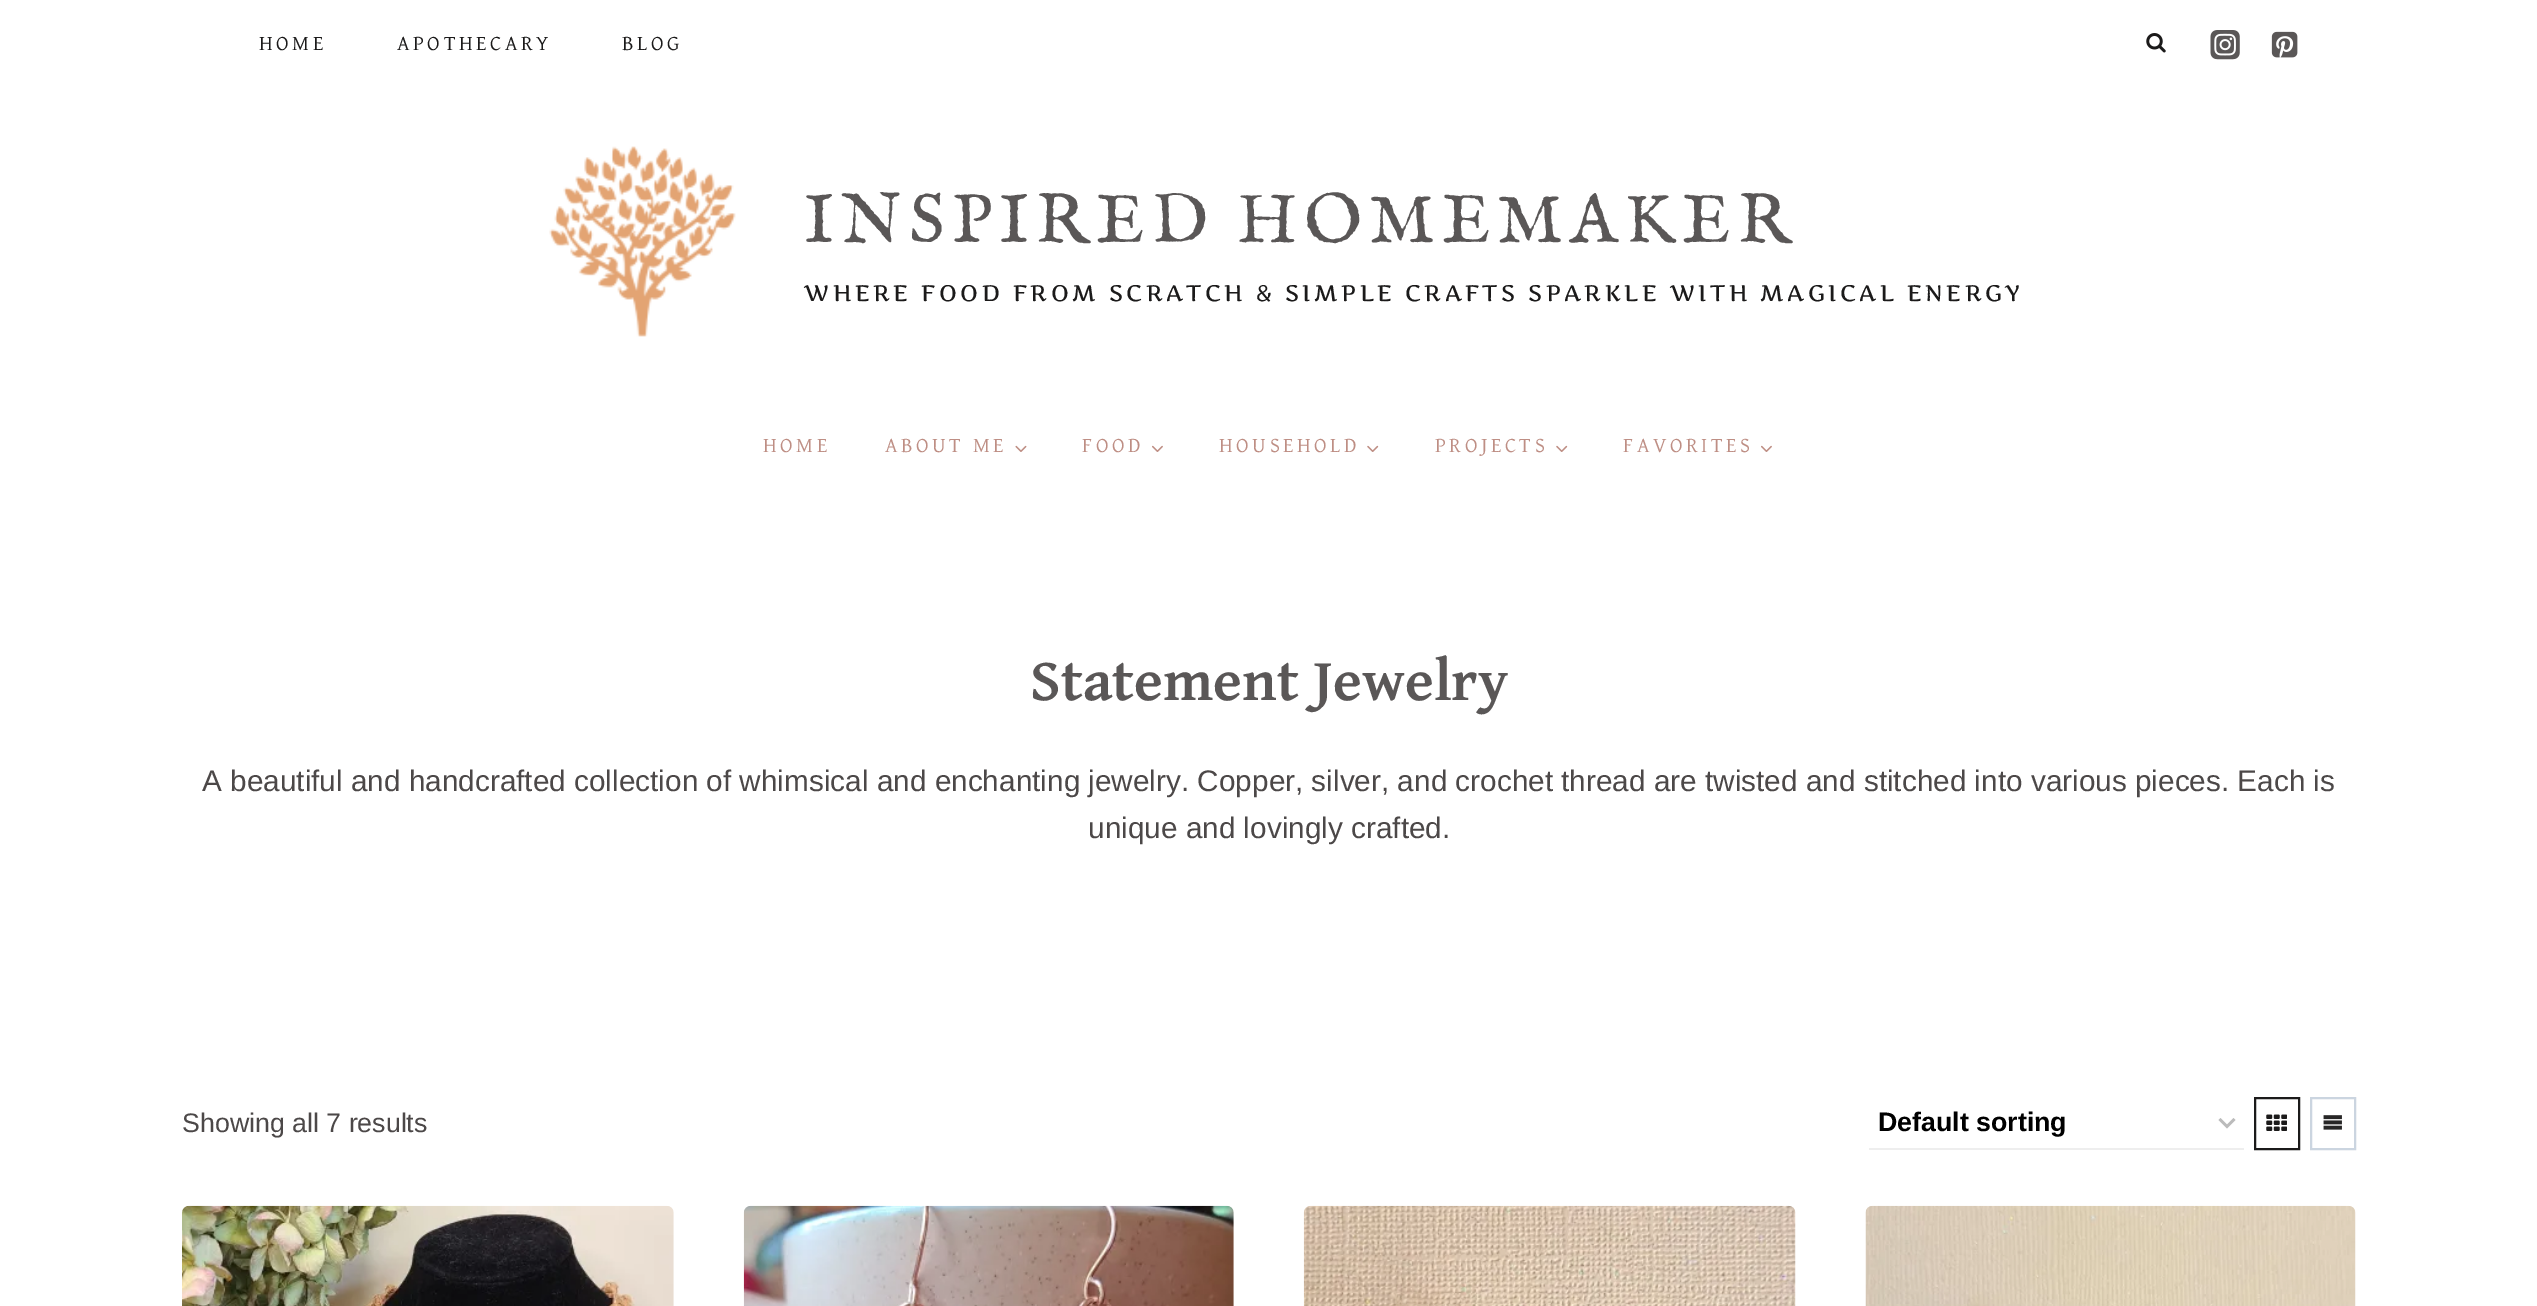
%!PS-Adobe-3.0
%%BoundingBox: 0 0 2537 1306
%%LanguageLevel: 3
%%Pages: 1
%%EndComments
%%BeginProlog
/setink { dup -16 bitshift 255 div exch dup -8 bitshift 255 and 255 div exch 255 and 255 div setrgbcolor } def
/usefont { [ exch dup neg 0 0 3 -1 roll 0 0 ] selectfont } def
/drawimage { 5 dict begin { /h /w /y /x /name } { exch def } forall
  gsave x y translate w h scale
  w h 8 [w 0 0 h 0 0] name (r) file false 3 colorimage grestore end } def
%%EndProlog
%%BeginSetup
<< /PageSize [2537 1306] >> setpagedevice
%%EndSetup
%%Page: 1 1
0 1306 translate 1 -1 scale
4 setmiterlimit
16#FFFFFF setink
0 0 2537 1306 rectfill
/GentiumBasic-Regular 21 usefont
16#1B1A1A setink
259 50 moveto 3.5 0 (HOME) ashow
397 50 moveto 3.5 0 (APOTHECARY) ashow
622 50 moveto 3.5 0 (BLOG) ashow
(img1.raw) 2146 33 20 20 drawimage
(img2.raw) 2210 30 30 30 drawimage
(img3.raw) 2271 31 27 27 drawimage
(img4.raw) 549 146 187 191 drawimage
/IMFELLEnglish-Regular 70 usefont
16#5A5757 setink
804 242 moveto 7 0 (INSPIRED HOMEMAKER) ashow
/Artifika-Regular 22.75 usefont
16#1B1A1A setink
804 301 moveto 3.5 0 (WHERE FOOD FROM SCRATCH & SIMPLE CRAFTS SPARKLE WITH MAGICAL ENERGY) ashow
/GentiumBasic-Regular 21 usefont
16#BE8E84 setink
763 452 moveto 3.5 0 (HOME) ashow
885 452 moveto 3.5 0 (ABOUT ME) ashow
(img5.raw) 1015 445 12 7 drawimage
1082 452 moveto 3.5 0 (FOOD) ashow
(img6.raw) 1152 445 11 7 drawimage
1219 452 moveto 3.5 0 (HOUSEHOLD) ashow
(img7.raw) 1367 445 12 7 drawimage
1435 452 moveto 3.5 0 (PROJECTS) ashow
(img7.raw) 1556 445 12 7 drawimage
1623 452 moveto 3.5 0 (FAVORITES) ashow
(img6.raw) 1761 445 11 7 drawimage
/GentiumBasic-Bold 59.5 usefont
16#5A5757 setink
1030 700 moveto (Statement Jewelry) show
/Arimo-Regular 29.75 usefont
16#4C4848 setink
202 791 moveto (A beautiful and handcrafted collection of whimsical and enchanting jewelry. Copper, silver, and crochet thread are twisted and stitched into various pieces. Each is) show
1088 838 moveto (unique and lovingly crafted.) show
/Arimo-Regular 26.75 usefont
182 1132 moveto (Showing all 7 results) show
16#BBBBBB setink
2.5 setlinewidth
2219.5 1119 moveto 2227 1126.5 lineto 2234.5 1119 lineto stroke
16#EEEEEE setink
1869 1148 375 2 rectfill
/Arimo-Bold 26.75 usefont
16#000000 setink
1878 1131 moveto (Default sorting) show
16#1B1A1A setink
2 setlinewidth
2255 1098 44 51 rectstroke
(img8.raw) 2266 1114 21 17 drawimage
16#CBD5E0 setink
2311 1098 44 51 rectstroke
(img9.raw) 2323 1115 19 15 drawimage
(img10.raw) 182 1205 492 101 drawimage
(img11.raw) 743 1205 491 101 drawimage
(img12.raw) 1303 1205 493 101 drawimage
(img13.raw) 1865 1205 491 101 drawimage
showpage
%%EOF
